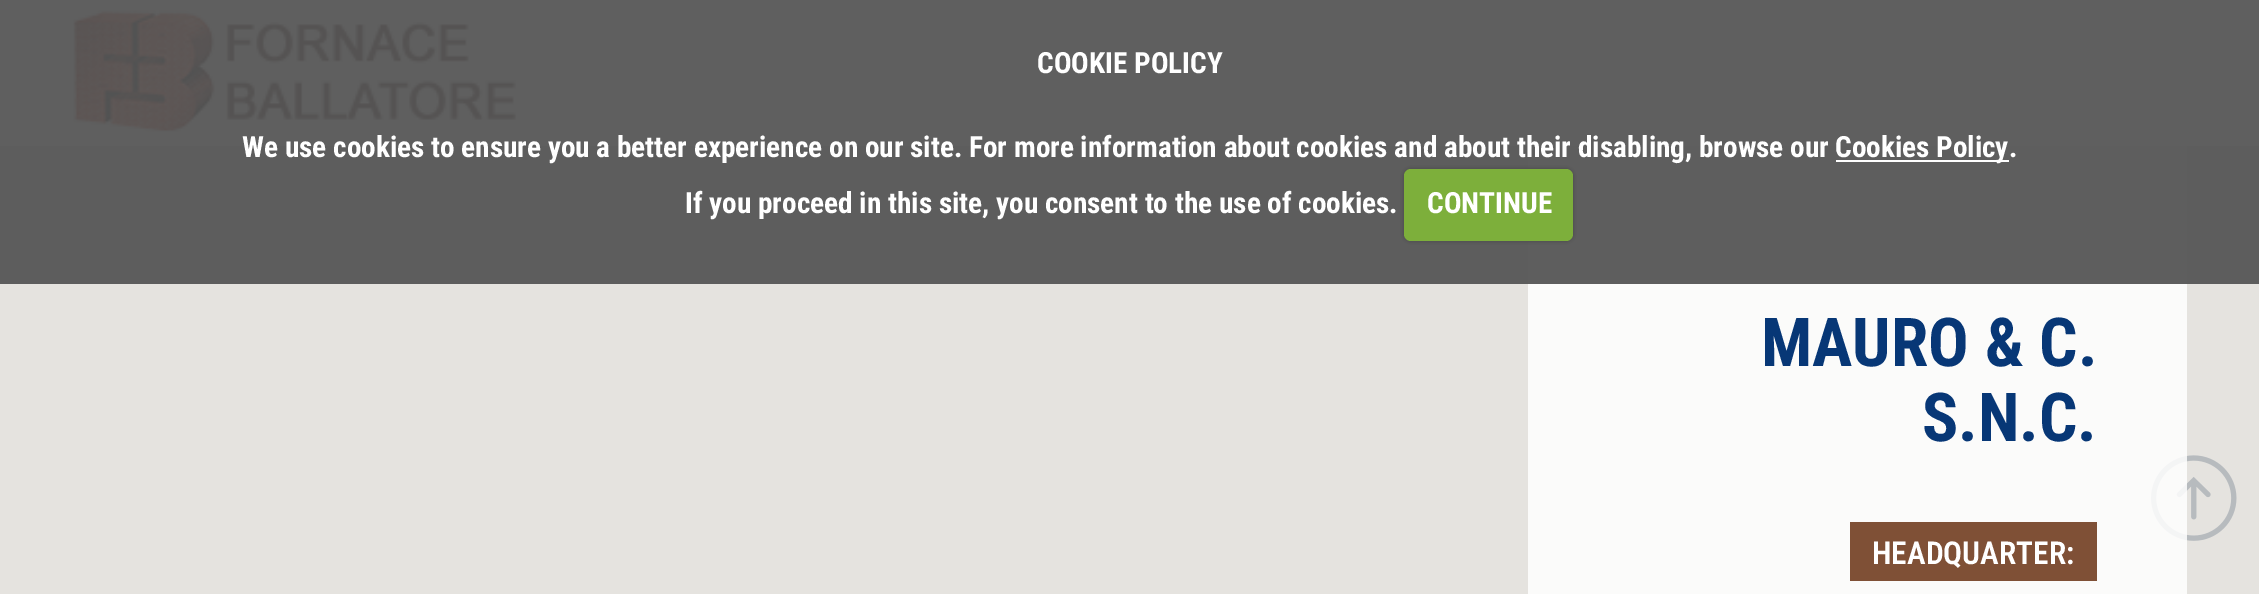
%!PS-Adobe-3.0
%%BoundingBox: 0 0 2259 594
%%LanguageLevel: 3
%%Pages: 1
%%EndComments
%%BeginProlog
/setink { dup -16 bitshift 255 div exch dup -8 bitshift 255 and 255 div exch 255 and 255 div setrgbcolor } def
/usefont { [ exch dup neg 0 0 3 -1 roll 0 0 ] selectfont } def
/setalpha { dup .setfillconstantalpha .setstrokeconstantalpha } def
/rrect { 5 dict begin { /r /h /w /y /x } { exch def } forall
  x r add y moveto x w add y 2 copy h add r arct x w add y h add x 1 index r arct
  x y h add x y r arct x y 2 copy exch w add exch r arct closepath end } def
/softshadow { 12 dict begin { /a /b /q /h /w /y /x } { exch def } forall gsave /was 0 def
  9 -2 -9 { dup b mul 4 div /e exch def 1 sub .425 mul 2.718 exch exp 1 add a .99 .min exch div /now exch def
    1 1 now sub 1 was sub div sub setalpha /was now def
    w h .min e 2 mul add 0 gt { x e sub y e sub w e 2 mul add h e 2 mul add
      q e add b .6 mul add w h .min 2 div e add .min 0 .max rrect fill } if } for grestore end } def
/drawimage { 5 dict begin { /h /w /y /x /name } { exch def } forall
  gsave x y translate w h scale
  w h 8 [w 0 0 h 0 0] name (r) file false 3 colorimage grestore end } def
%%EndProlog
%%BeginSetup
<< /PageSize [2259 594] /PageUsesTransparency true >> setpagedevice
%%EndSetup
%%Page: 1 1
0 .pushpdf14devicefilter
0 594 translate 1 -1 scale
4 setmiterlimit
16#E5E3DF setink
0 0 2259 594 rectfill
(img2.raw) 2151 455 86 86 drawimage
0.85 setalpha
16#FFFFFF setink
1528 0 659 594 rectfill
0.95 setalpha
0 0 2259 146 rectfill
1 setalpha
(img1.raw) 73 10 443 122 drawimage
0.95 setalpha
16#565656 setink
0 0 2259 284 rectfill
/RobotoCondensed-Bold 29.25 usefont
1 setalpha
16#FFFFFF setink
1037 73 moveto (COOKIE POLICY) show
242 157 moveto (We use cookies to ensure you a better experience on our site. For more information about cookies and about their disabling, browse our) show
1836 160 173 2 rectfill
1835 157 moveto (Cookies Policy.) show
685 213 moveto (If you proceed in this site, you consent to the use of cookies.) show
16#000000 setink
1404 169 169 72 7 2 0.25 softshadow
16#7DAF3B setink
1404 169 169 72 7 rrect fill
16#FFFFFF setink
1427 213 moveto (CONTINUE) show
/RobotoCondensed-Bold 67.5 usefont
16#073776 setink
1761 366 moveto (MAURO & C.) show
1922 441 moveto (S.N.C.) show
16#7F5036 setink
1850 522 247 59 rectfill
/RobotoCondensed-SemiBold 31.5 usefont
16#FFFFFF setink
1872 564 moveto (HEADQUARTER:) show
.poppdf14devicefilter showpage
%%EOF
